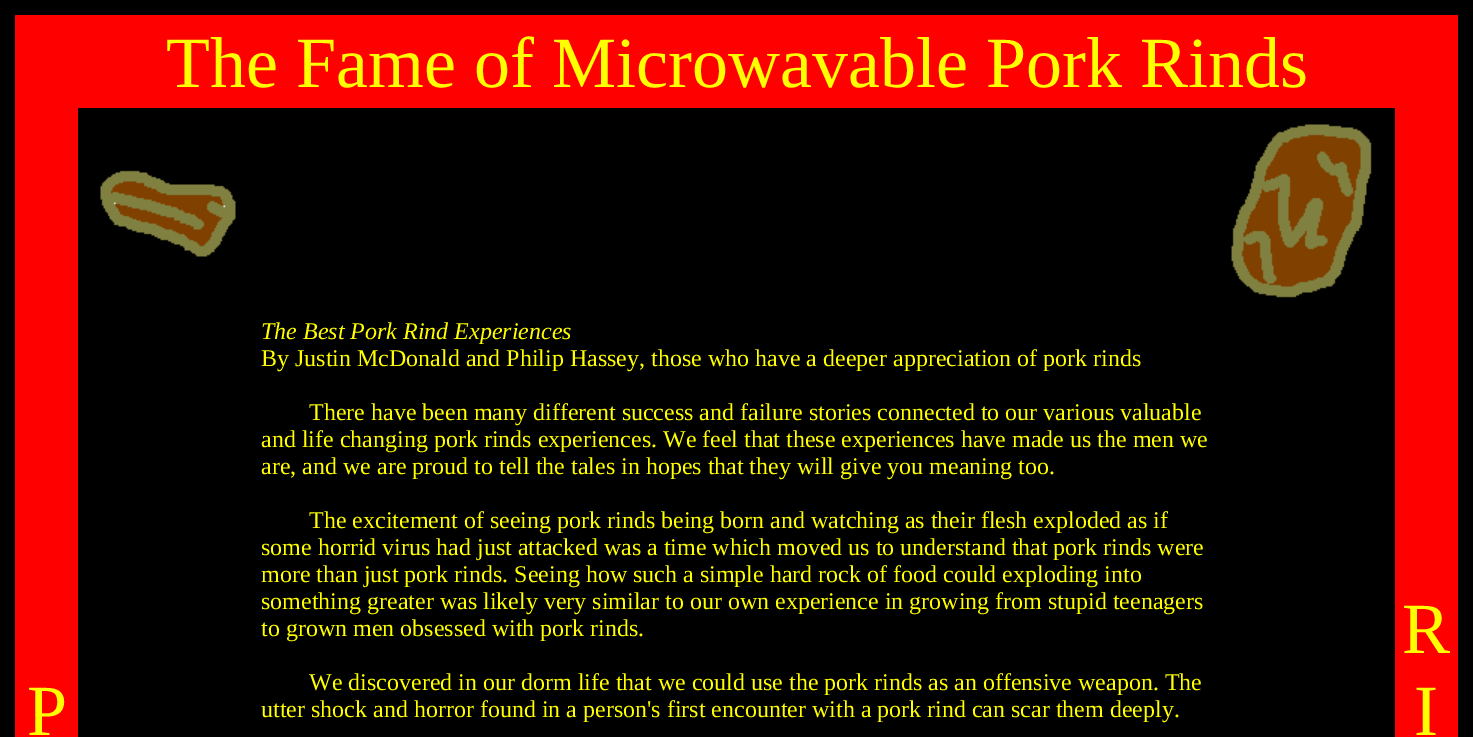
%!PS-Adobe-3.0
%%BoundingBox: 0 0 1473 737
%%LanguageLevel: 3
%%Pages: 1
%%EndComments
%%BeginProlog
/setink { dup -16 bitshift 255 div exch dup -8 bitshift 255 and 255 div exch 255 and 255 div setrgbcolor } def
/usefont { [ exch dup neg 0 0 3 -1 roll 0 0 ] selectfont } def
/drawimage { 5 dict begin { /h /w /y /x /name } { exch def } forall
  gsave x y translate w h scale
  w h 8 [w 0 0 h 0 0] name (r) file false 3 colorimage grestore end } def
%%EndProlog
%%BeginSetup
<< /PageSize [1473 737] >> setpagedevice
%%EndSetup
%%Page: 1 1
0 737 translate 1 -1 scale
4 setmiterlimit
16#000000 setink
0 0 1473 737 rectfill
16#FF0000 setink
15 15 1443 722 rectfill
/LiberationSerif-Regular 72 usefont
16#FFFF00 setink
166 87 moveto (The Fame of Microwavable Pork Rinds) show
27 735 moveto (P) show
16#000000 setink
78 108 1317 629 rectfill
(img1.raw) 100 170 136 87 drawimage
(img2.raw) 1231 124 141 174 drawimage
/LiberationSerif-Italic 24 usefont
16#FFFF00 setink
261 339 moveto (The Best Pork Rind Experiences) show
/LiberationSerif-Regular 24 usefont
[
    [(By Justin McDonald and Philip Hassey, those who have a deeper appreciation of pork rinds) 261 366]
    [(There have been many different success and failure stories connected to our various valuable) 309 420]
    [(and life changing pork rinds experiences. We feel that these experiences have made us the men we) 261 447]
    [(are, and we are proud to tell the tales in hopes that they will give you meaning too.) 261 474]
    [(The excitement of seeing pork rinds being born and watching as their flesh exploded as if) 309 528]
    [(some horrid virus had just attacked was a time which moved us to understand that pork rinds were) 261 555]
    [(more than just pork rinds. Seeing how such a simple hard rock of food could exploding into) 261 582]
    [(something greater was likely very similar to our own experience in growing from stupid teenagers) 261 609]
    [(to grown men obsessed with pork rinds.) 261 636]
    [(We discovered in our dorm life that we could use the pork rinds as an offensive weapon. The) 309 690]
    [(utter shock and horror found in a person's first encounter with a pork rind can scar them deeply.) 261 717]
] { aload pop moveto show } forall
/LiberationSerif-Regular 72 usefont
1402 653 moveto (R) show
1414 735 moveto (I) show
showpage
%%EOF
